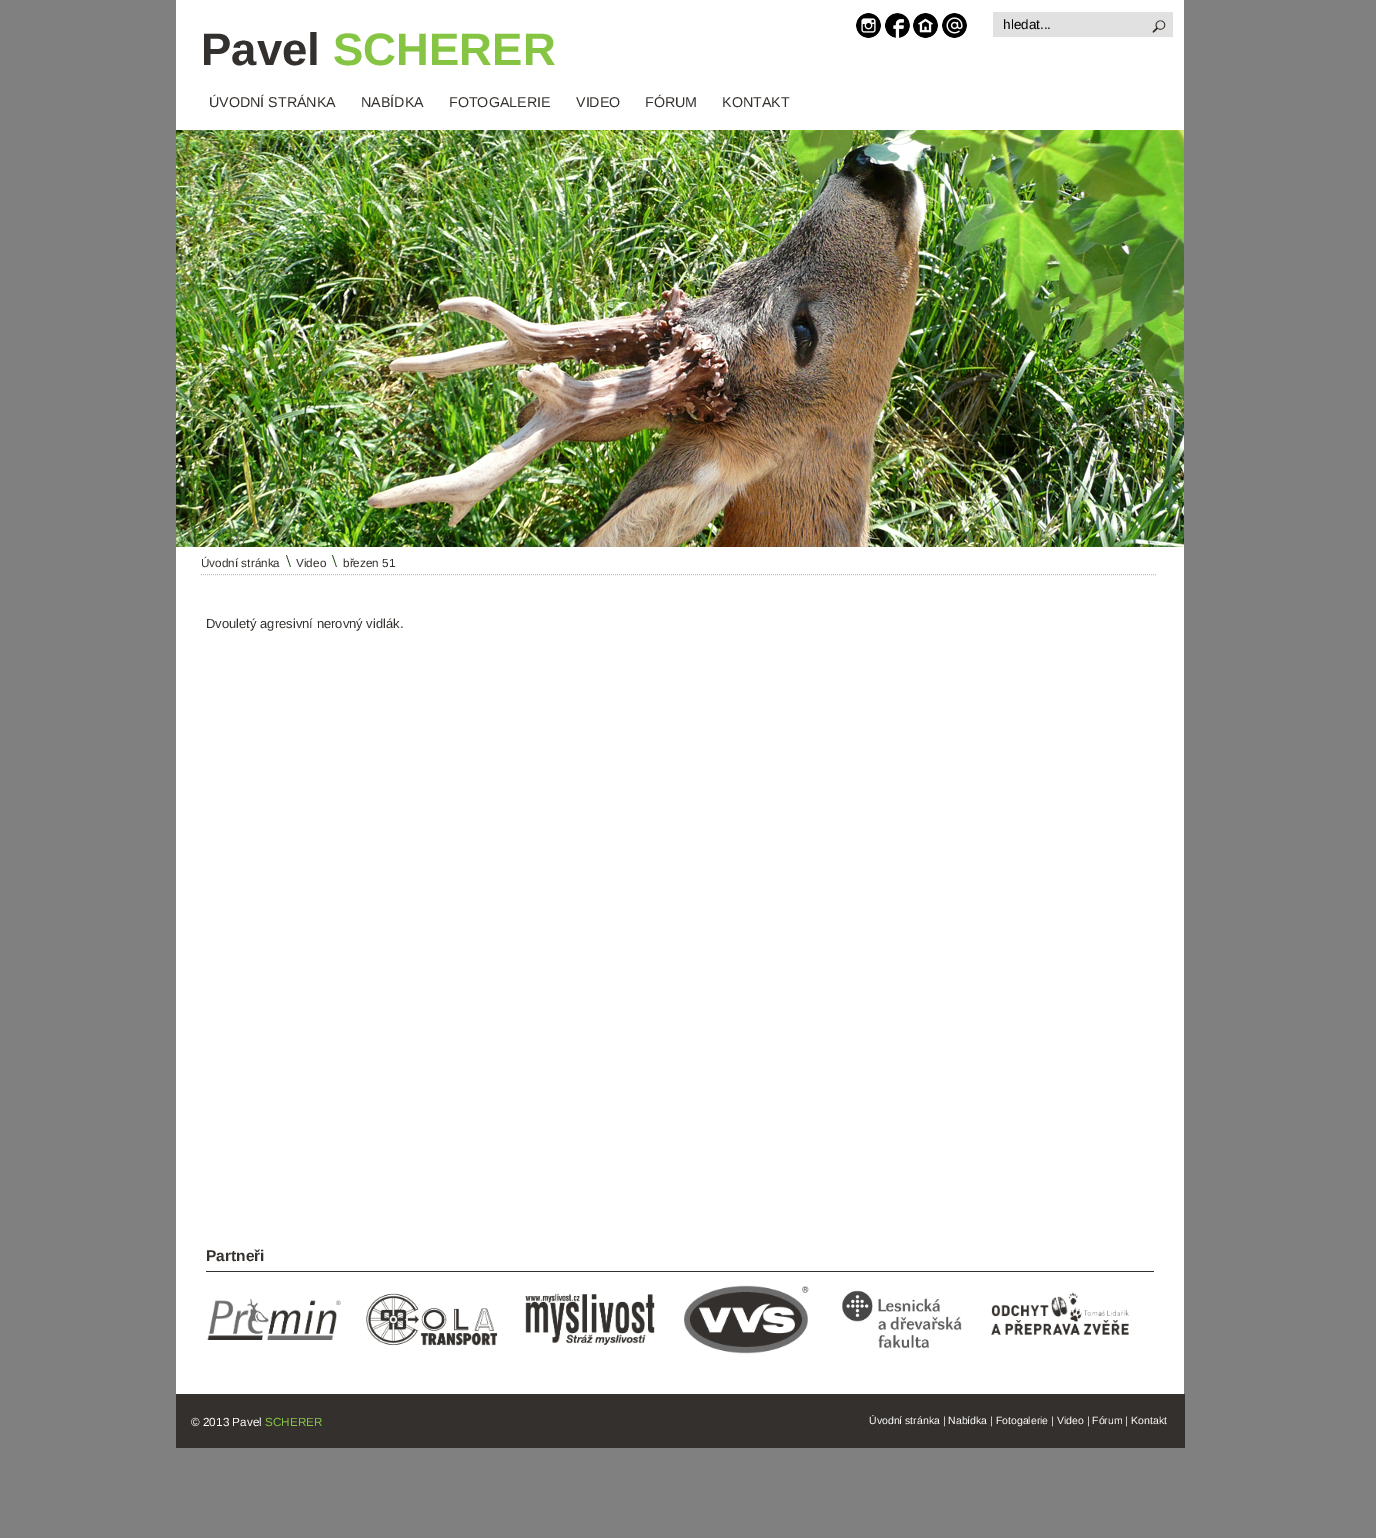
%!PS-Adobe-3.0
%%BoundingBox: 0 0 1376 1538
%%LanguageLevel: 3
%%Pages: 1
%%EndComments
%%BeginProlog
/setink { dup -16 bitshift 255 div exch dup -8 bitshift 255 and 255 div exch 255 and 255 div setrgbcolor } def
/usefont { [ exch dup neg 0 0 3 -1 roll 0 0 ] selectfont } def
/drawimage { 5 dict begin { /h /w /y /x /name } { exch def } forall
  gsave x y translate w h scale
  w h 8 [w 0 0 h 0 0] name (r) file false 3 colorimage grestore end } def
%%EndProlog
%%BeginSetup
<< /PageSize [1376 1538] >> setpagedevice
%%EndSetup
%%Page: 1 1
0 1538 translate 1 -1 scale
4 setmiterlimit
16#808080 setink
0 0 1376 1538 rectfill
16#FFFFFF setink
176 0 1008 1394 rectfill
(img1.raw) 856 13 25 25 drawimage
(img2.raw) 885 13 25 25 drawimage
(img3.raw) 913 13 25 25 drawimage
(img4.raw) 942 13 25 25 drawimage
16#E1E1E1 setink
993 12 180 25 rectfill
/LiberationSans-Regular 13.5 usefont
16#000000 setink
1003 29 moveto (hledat...) show
(img5.raw) 1152 20 14 13 drawimage
/LiberationSans-Bold 45.5 usefont
16#34302D setink
201 65 moveto (Pavel) show
16#86C543 setink
333 65 moveto (SCHERER) show
(img6.raw) 176 130 1008 417 drawimage
/LiberationSans-Regular 14.25 usefont
16#34302D setink
[
    [(ÚVODNÍ STRÁNKA) 209 107]
    [(NABÍDKA) 361 107]
    [(FOTOGALERIE) 449 107]
    [(VIDEO) 576 107]
    [(FÓRUM) 645 107]
    [(KONTAKT) 722 107]
] { aload pop moveto show } forall
16#C0C0C0 setink
[1 1] 0 setdash
201 574.5 moveto 1156 574.5 lineto stroke
/LiberationSans-Regular 11.75 usefont
16#34302D setink
201 567 moveto (Úvodní stránka) show
(img7.raw) 286 555 5 12 drawimage
296 567 moveto (Video) show
(img7.raw) 332 555 5 12 drawimage
343 567 moveto (březen 51) show
/LiberationSans-Regular 13 usefont
206 628 moveto (Dvouletý agresivní nerovný vidlák.) show
/LiberationSans-Bold 15.5 usefont
206 1261 moveto (Partneři) show
206 1271 948 1 rectfill
(img8.raw) 207 1298 134 42 drawimage
(img9.raw) 366 1293 132 53 drawimage
(img10.raw) 525 1293 130 52 drawimage
(img11.raw) 684 1285 125 69 drawimage
(img12.raw) 842 1290 120 59 drawimage
(img13.raw) 991 1291 138 44 drawimage
176 1394 1009 54 rectfill
/LiberationSans-Regular 11.75 usefont
16#FFFFFF setink
191 1426 moveto (© 2013 Pavel) show
16#86C543 setink
265 1426 moveto (SCHERER) show
/LiberationSans-Regular 10.5 usefont
16#FFFFFF setink
869 1424 moveto (Úvodní stránka | Nabídka | Fotogalerie | Video | Fórum | Kontakt) show
showpage
%%EOF
